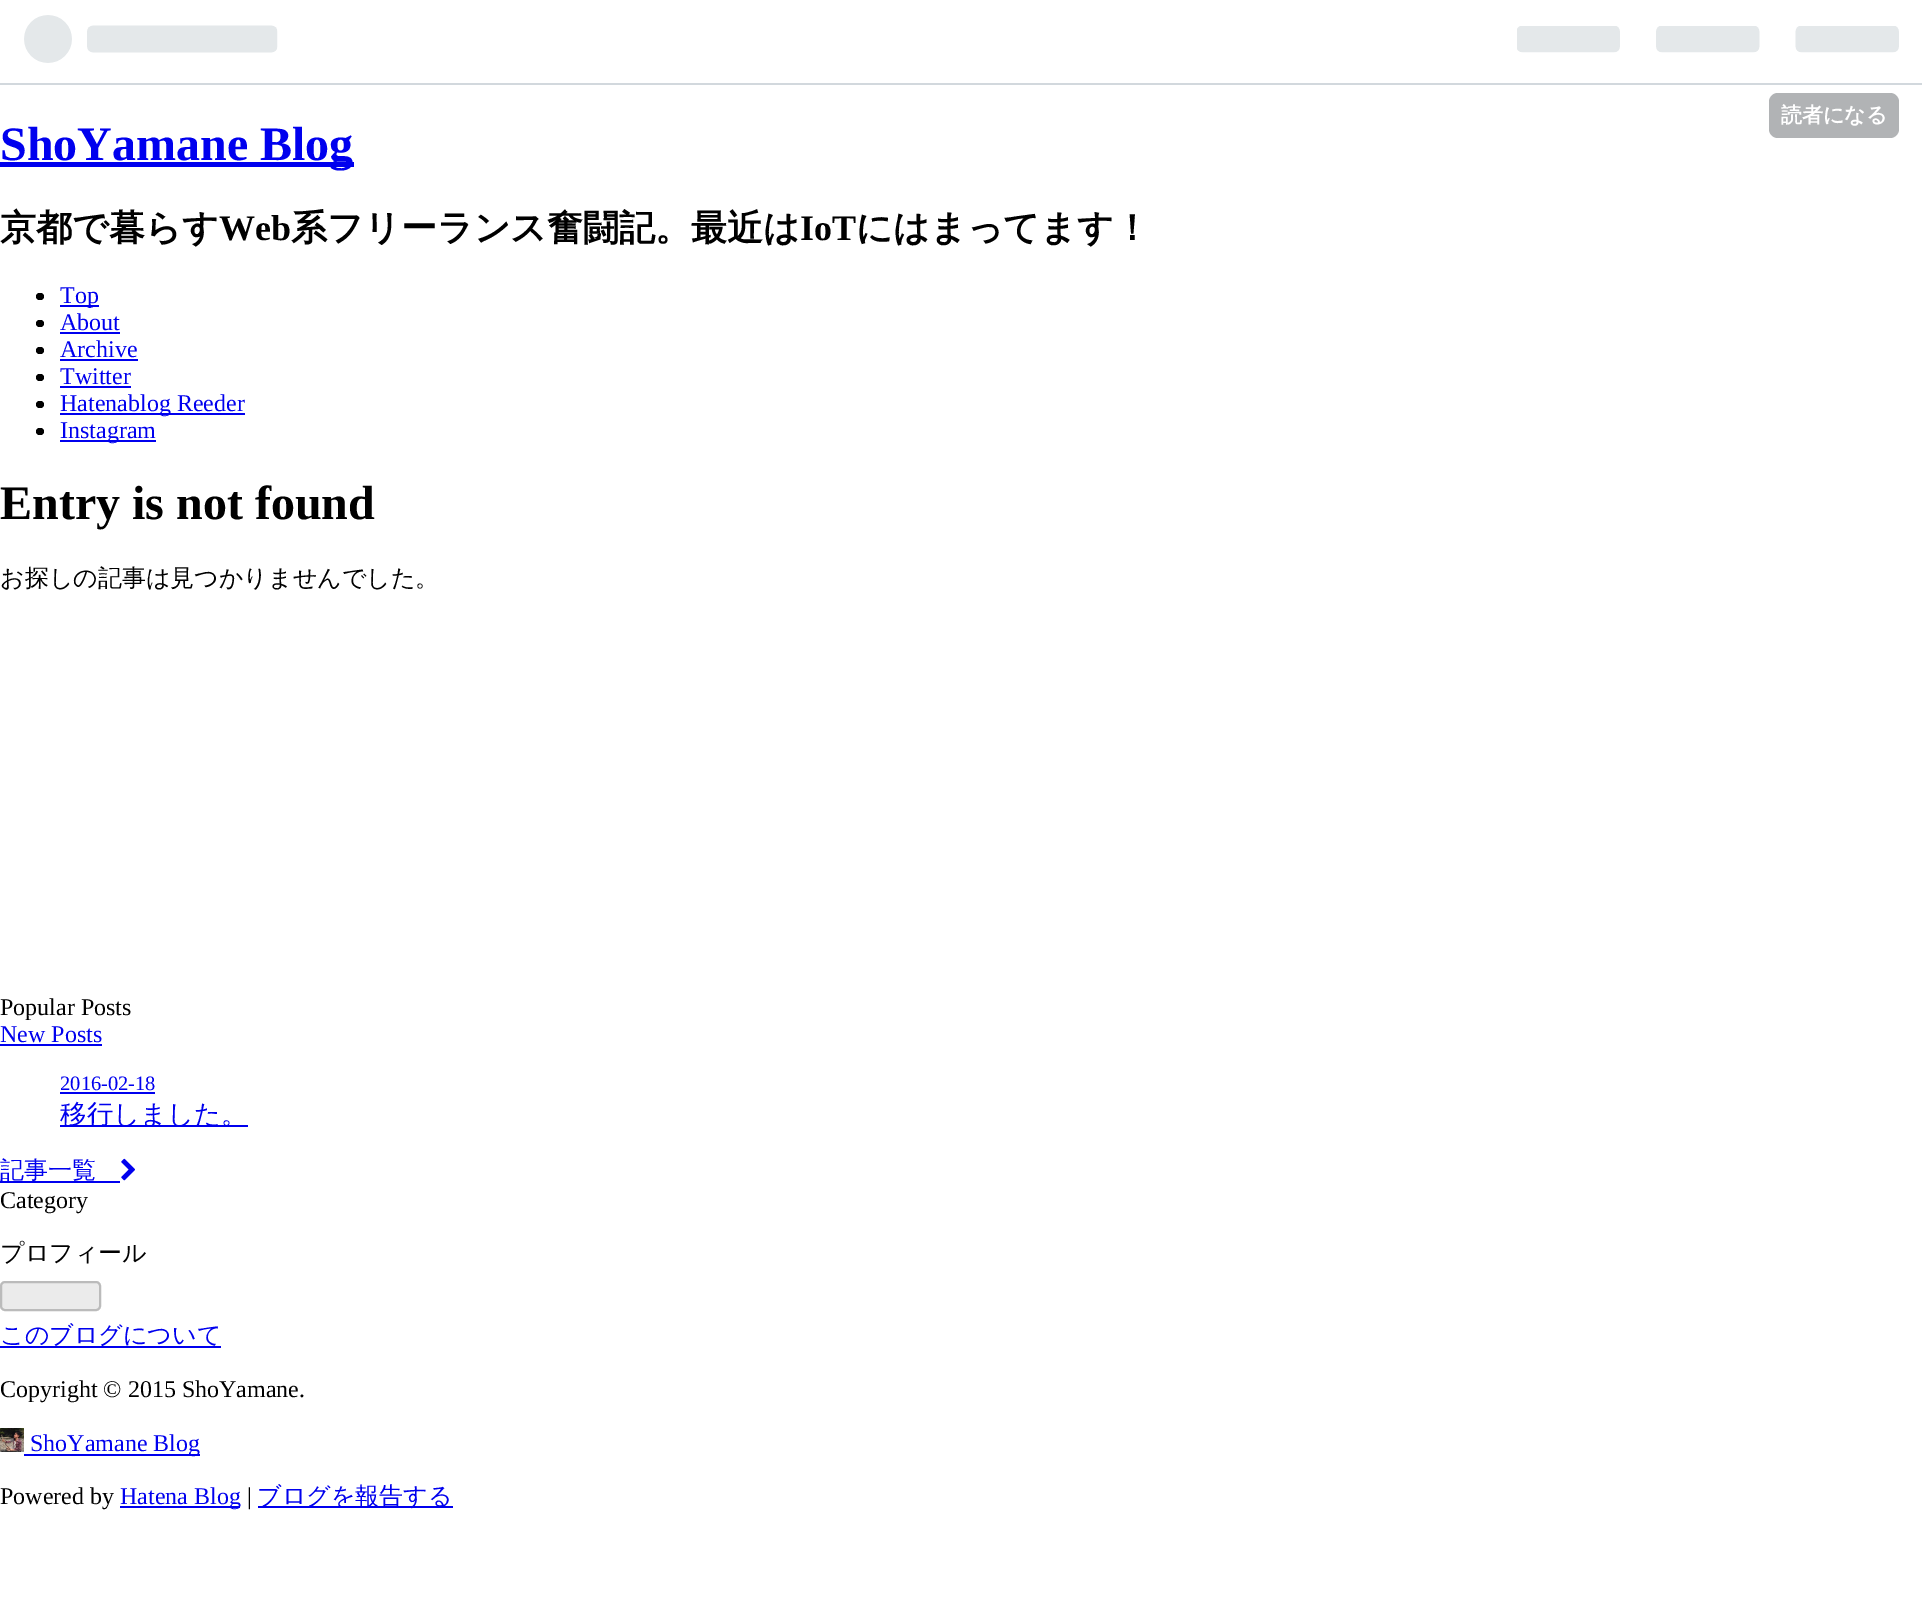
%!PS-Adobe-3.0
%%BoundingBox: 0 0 1922 1606
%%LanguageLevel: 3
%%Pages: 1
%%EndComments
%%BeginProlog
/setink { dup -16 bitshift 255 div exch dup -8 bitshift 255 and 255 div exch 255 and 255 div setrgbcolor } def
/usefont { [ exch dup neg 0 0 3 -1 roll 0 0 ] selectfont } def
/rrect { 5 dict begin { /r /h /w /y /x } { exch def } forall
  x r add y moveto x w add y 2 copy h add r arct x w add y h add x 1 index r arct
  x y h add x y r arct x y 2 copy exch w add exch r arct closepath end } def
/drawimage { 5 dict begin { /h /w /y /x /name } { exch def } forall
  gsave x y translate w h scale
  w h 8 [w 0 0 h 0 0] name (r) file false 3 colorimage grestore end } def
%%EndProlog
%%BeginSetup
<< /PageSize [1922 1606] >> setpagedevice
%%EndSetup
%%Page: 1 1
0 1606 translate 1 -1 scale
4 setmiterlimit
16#FFFFFF setink
0 0 1922 1606 rectfill
16#D2D8DD setink
0 83 1922 2 rectfill
(img1.raw) 24 15 254 48 drawimage
(img2.raw) 1517 26 382 27 drawimage
16#B1B3B5 setink
1769 93 130 45 9 rrect fill
/WenQuanYiZenHei-Bold 21 usefont
16#FFFFFF setink
1781 122 moveto (読者になる) show
16#0000EE setink
0 162 354 5 rectfill
/LiberationSerif-Bold 48 usefont
0 160 moveto (ShoYamane Blog) show
/WenQuanYiZenHei-Bold 36 usefont
16#000000 setink
0 240 moveto (京都で暮らす) show
/LiberationSerif-Bold 36 usefont
219 240 moveto (Web) show
/WenQuanYiZenHei-Bold 36 usefont
291 240 moveto (系フリーランス奮闘記。最近は) show
/LiberationSerif-Bold 36 usefont
800 240 moveto (IoT) show
/WenQuanYiZenHei-Bold 36 usefont
856 240 moveto (にはまってます！) show
36 293 8 7 3.5 rrect fill
16#0000EE setink
60 305 39 2 rectfill
/LiberationSerif-Regular 24 usefont
60 303 moveto (Top) show
16#000000 setink
36 320 8 7 3.5 rrect fill
16#0000EE setink
60 330 moveto (About) show
60 332 60 2 rectfill
16#000000 setink
36 347 8 7 3.5 rrect fill
16#0000EE setink
60 357 moveto (Archive) show
60 359 78 2 rectfill
16#000000 setink
36 374 8 7 3.5 rrect fill
16#0000EE setink
60 384 moveto (Twitter) show
60 386 71 2 rectfill
16#000000 setink
36 401 8 7 3.5 rrect fill
16#0000EE setink
60 413 185 2 rectfill
60 411 moveto (Hatenablog Reeder) show
16#000000 setink
36 428 8 7 3.5 rrect fill
16#0000EE setink
60 440 96 2 rectfill
60 438 moveto (Instagram) show
/LiberationSerif-Bold 48 usefont
16#000000 setink
0 519 moveto (Entry is not found) show
/WenQuanYiZenHei-Medium 24 usefont
0 586 moveto (お探しの記事は見つかりませんでした。) show
/LiberationSerif-Regular 24 usefont
0 1015 moveto (Popular Posts) show
16#0000EE setink
0 1042 moveto (New Posts) show
0 1044 102 2 rectfill
/LiberationSerif-Regular 20.5 usefont
60 1090 moveto (2016-02-18) show
60 1092 95 2 rectfill
60 1125 188 2 rectfill
/WenQuanYiZenHei-Medium 26.5 usefont
60 1123 moveto (移行しました。) show
0 1181 120 2 rectfill
/WenQuanYiZenHei-Medium 24 usefont
0 1178 moveto (記事一覧) show
(img3.raw) 121 1158 14 23 drawimage
/LiberationSerif-Regular 24 usefont
16#000000 setink
0 1208 moveto (Category) show
/WenQuanYiZenHei-Medium 24 usefont
0 1261 moveto (プロフィール) show
16#EBEBEB setink
1 1282 99 28 4 rrect gsave fill grestore
16#BBBBBB setink
2 setlinewidth
stroke
16#0000EE setink
0 1346 221 2 rectfill
0 1343 moveto (このブログについて) show
/LiberationSerif-Regular 24 usefont
16#000000 setink
0 1397 moveto (Copyright © 2015 ShoYamane.) show
(img4.raw) 0 1428 24 24 drawimage
16#0000EE setink
24 1454 176 2 rectfill
30 1451 moveto (ShoYamane Blog) show
16#000000 setink
0 1504 moveto (Powered by) show
16#0000EE setink
120 1506 120 2 rectfill
120 1504 moveto (Hatena Blog) show
16#000000 setink
247 1504 moveto (|) show
16#0000EE setink
258 1506 195 2 rectfill
/WenQuanYiZenHei-Medium 24 usefont
257 1504 moveto (ブログを報告する) show
showpage
%%EOF
